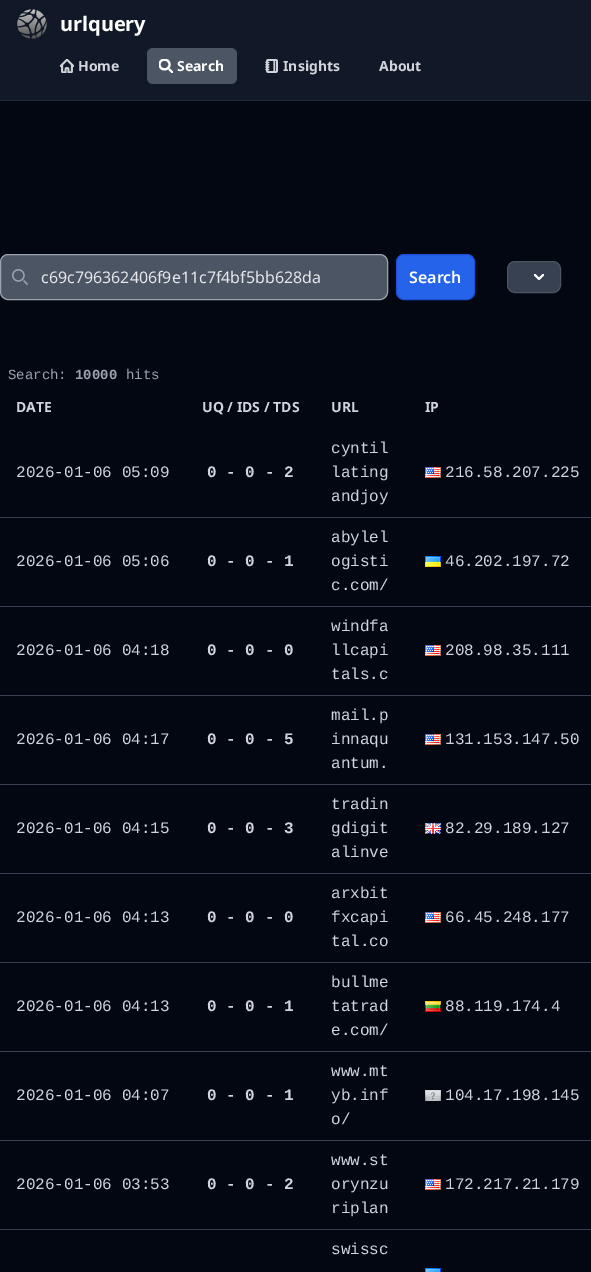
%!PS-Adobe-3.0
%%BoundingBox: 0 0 591 1272
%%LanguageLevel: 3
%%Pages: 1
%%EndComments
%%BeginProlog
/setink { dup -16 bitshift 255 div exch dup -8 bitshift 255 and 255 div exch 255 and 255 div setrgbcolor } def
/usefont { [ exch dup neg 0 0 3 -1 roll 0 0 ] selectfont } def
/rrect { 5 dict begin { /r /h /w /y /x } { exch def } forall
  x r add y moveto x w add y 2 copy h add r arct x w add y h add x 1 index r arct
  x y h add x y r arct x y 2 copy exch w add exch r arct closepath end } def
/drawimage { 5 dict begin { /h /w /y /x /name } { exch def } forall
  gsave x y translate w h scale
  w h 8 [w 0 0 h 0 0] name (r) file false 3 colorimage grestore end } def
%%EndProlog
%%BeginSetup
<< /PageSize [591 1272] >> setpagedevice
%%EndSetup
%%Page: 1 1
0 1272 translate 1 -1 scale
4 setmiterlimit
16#030712 setink
0 0 591 1272 rectfill
16#1F2937 setink
0 100 591 1 rectfill
16#111827 setink
0 0 591 100 rectfill
(img1.raw) 17 9 30 30 drawimage
/NotoSans-Bold 20 usefont
16#FFFFFF setink
60 31 moveto (urlquery) show
(img2.raw) 60 59 14 14 drawimage
/NotoSans-Bold 14 usefont
16#D1D5DB setink
78 71 moveto (Home) show
16#4B5563 setink
147 48 90 36 6 rrect fill
gsave
159 59 14 14 rectclip
16#FFFFFF setink
2.1 setlinewidth
1 setlinecap
1 setlinejoin
172.5 72.5 moveto 169.5 69.5 lineto 169.5 64.5 moveto 169.5 71 159.5 71 159.5 64.5 curveto 159.5 58 169.5 58 169.5 64.5 curveto closepath stroke
grestore
16#FFFFFF setink
177 71 moveto (Search) show
(img3.raw) 265 59 13 14 drawimage
16#D1D5DB setink
283 71 moveto (Insights) show
379 71 moveto (About) show
16#4B5563 setink
0.5 254.5 387 45 7.5 rrect gsave fill grestore
16#9CA3AF setink
stroke
(img4.raw) 12 269 16 16 drawimage
/NotoSans-Regular 16 usefont
16#E5E7EB setink
41 283 moveto (c69c796362406f9e11c7f4bf5bb628da) show
16#2563EB setink
396.5 254.5 78 45 7.5 rrect gsave fill grestore
16#1D4ED8 setink
stroke
/NotoSans-SemiBold 16 usefont
16#FFFFFF setink
409 283 moveto (Search) show
16#374151 setink
507.5 261.5 53 31 7.5 rrect gsave fill grestore
16#4B5563 setink
stroke
16#FFFFFF setink
2 setlinewidth
1 setlinecap
1 setlinejoin
535 275 moveto 539 279 lineto 543 275 lineto stroke
/LiberationMono-Regular 14 usefont
16#9CA3AF setink
8 379 moveto (Search:) show
/LiberationMono-Bold 14 usefont
75 379 moveto (10000) show
/LiberationMono-Regular 14 usefont
126 379 moveto (hits) show
/NotoSans-Bold 14 usefont
16#D1D5DB setink
[
    [(DATE) 16 412]
    [(UQ / IDS / TDS) 202 412]
    [(URL) 331 412]
    [(IP) 425 412]
] { aload pop moveto show } forall
16#374151 setink
0 517 591 1 rectfill
/LiberationMono-Regular 16 usefont
16#D1D5DB setink
16 477 moveto (2026-01-06 05:09) show
/LiberationMono-Bold 16 usefont
207 477 moveto (0 - 0 - 2) show
/LiberationMono-Regular 16 usefont
[
    [(cyntil) 331 453]
    [(lating) 331 477]
    [(andjoy) 331 501]
] { aload pop moveto show } forall
(img5.raw) 425 467 16 11 drawimage
445 477 moveto (216.58.207.225) show
16#374151 setink
0 606 591 1 rectfill
16#D1D5DB setink
16 566 moveto (2026-01-06 05:06) show
/LiberationMono-Bold 16 usefont
207 566 moveto (0 - 0 - 1) show
/LiberationMono-Regular 16 usefont
[
    [(abylel) 331 542]
    [(ogisti) 331 566]
    [(c.com/) 331 590]
] { aload pop moveto show } forall
(img6.raw) 425 556 16 11 drawimage
445 566 moveto (46.202.197.72) show
16#374151 setink
0 695 591 1 rectfill
16#D1D5DB setink
16 655 moveto (2026-01-06 04:18) show
/LiberationMono-Bold 16 usefont
207 655 moveto (0 - 0 - 0) show
/LiberationMono-Regular 16 usefont
[
    [(windfa) 331 631]
    [(llcapi) 331 655]
    [(tals.c) 331 679]
] { aload pop moveto show } forall
(img5.raw) 425 645 16 11 drawimage
445 655 moveto (208.98.35.111) show
16#374151 setink
0 784 591 1 rectfill
16#D1D5DB setink
16 744 moveto (2026-01-06 04:17) show
/LiberationMono-Bold 16 usefont
207 744 moveto (0 - 0 - 5) show
/LiberationMono-Regular 16 usefont
[
    [(mail.p) 331 720]
    [(innaqu) 331 744]
    [(antum.) 331 768]
] { aload pop moveto show } forall
(img5.raw) 425 734 16 11 drawimage
445 744 moveto (131.153.147.50) show
16#374151 setink
0 873 591 1 rectfill
16#D1D5DB setink
16 833 moveto (2026-01-06 04:15) show
/LiberationMono-Bold 16 usefont
207 833 moveto (0 - 0 - 3) show
/LiberationMono-Regular 16 usefont
[
    [(tradin) 331 809]
    [(gdigit) 331 833]
    [(alinve) 331 857]
] { aload pop moveto show } forall
(img7.raw) 425 823 16 11 drawimage
445 833 moveto (82.29.189.127) show
16#374151 setink
0 962 591 1 rectfill
16#D1D5DB setink
16 922 moveto (2026-01-06 04:13) show
/LiberationMono-Bold 16 usefont
207 922 moveto (0 - 0 - 0) show
/LiberationMono-Regular 16 usefont
[
    [(arxbit) 331 898]
    [(fxcapi) 331 922]
    [(tal.co) 331 946]
] { aload pop moveto show } forall
(img5.raw) 425 912 16 11 drawimage
445 922 moveto (66.45.248.177) show
16#374151 setink
0 1051 591 1 rectfill
16#D1D5DB setink
16 1011 moveto (2026-01-06 04:13) show
/LiberationMono-Bold 16 usefont
207 1011 moveto (0 - 0 - 1) show
/LiberationMono-Regular 16 usefont
[
    [(bullme) 331 987]
    [(tatrad) 331 1011]
    [(e.com/) 331 1035]
] { aload pop moveto show } forall
(img8.raw) 425 1001 16 11 drawimage
445 1011 moveto (88.119.174.4) show
16#374151 setink
0 1140 591 1 rectfill
16#D1D5DB setink
16 1100 moveto (2026-01-06 04:07) show
/LiberationMono-Bold 16 usefont
207 1100 moveto (0 - 0 - 1) show
/LiberationMono-Regular 16 usefont
[
    [(www.mt) 331 1076]
    [(yb.inf) 331 1100]
    [(o/) 331 1124]
] { aload pop moveto show } forall
(img9.raw) 425 1090 16 11 drawimage
445 1100 moveto (104.17.198.145) show
16#374151 setink
0 1229 591 1 rectfill
16#D1D5DB setink
16 1189 moveto (2026-01-06 03:53) show
/LiberationMono-Bold 16 usefont
207 1189 moveto (0 - 0 - 2) show
/LiberationMono-Regular 16 usefont
[
    [(www.st) 331 1165]
    [(orynzu) 331 1189]
    [(riplan) 331 1213]
] { aload pop moveto show } forall
(img5.raw) 425 1179 16 11 drawimage
445 1189 moveto (172.217.21.179) show
331 1254 moveto (swissc) show
(img10.raw) 425 1268 16 4 drawimage
showpage
%%EOF
